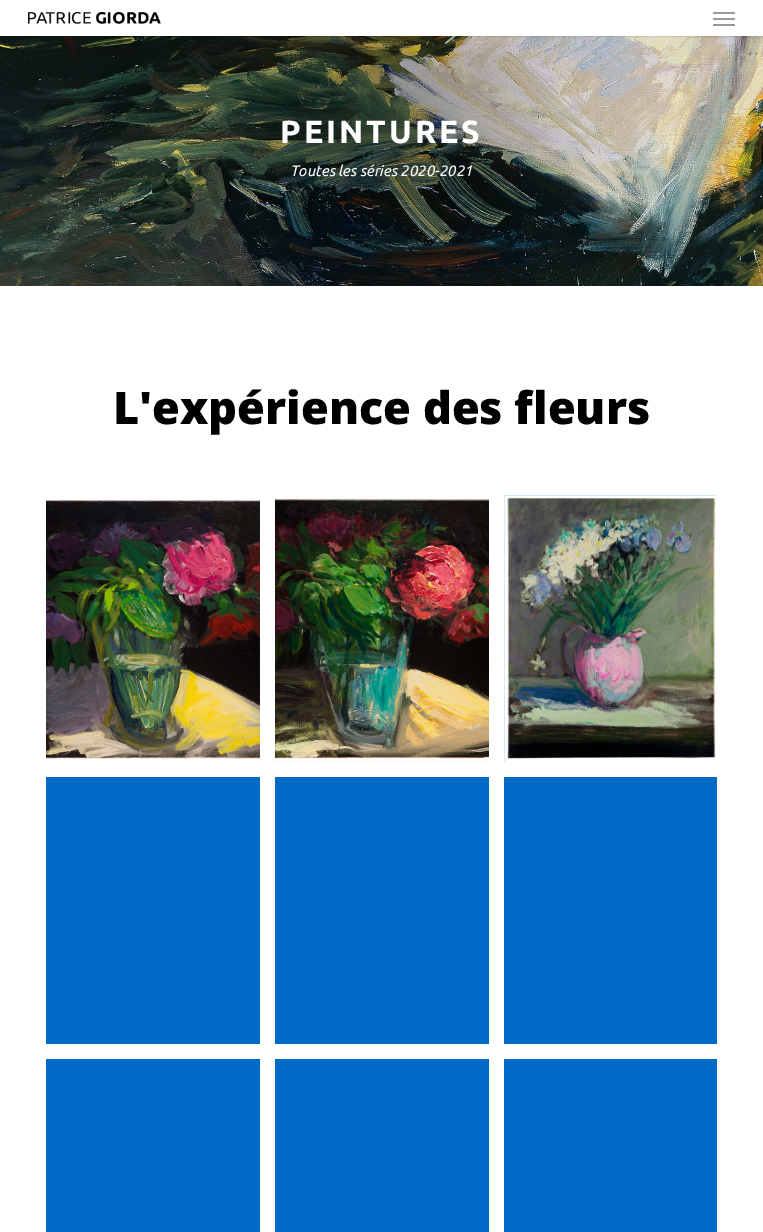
%!PS-Adobe-3.0
%%BoundingBox: 0 0 763 1232
%%LanguageLevel: 3
%%Pages: 1
%%EndComments
%%BeginProlog
/setink { dup -16 bitshift 255 div exch dup -8 bitshift 255 and 255 div exch 255 and 255 div setrgbcolor } def
/usefont { [ exch dup neg 0 0 3 -1 roll 0 0 ] selectfont } def
/setalpha { dup .setfillconstantalpha .setstrokeconstantalpha } def
/rrect { 5 dict begin { /r /h /w /y /x } { exch def } forall
  x r add y moveto x w add y 2 copy h add r arct x w add y h add x 1 index r arct
  x y h add x y r arct x y 2 copy exch w add exch r arct closepath end } def
/softshadow { 12 dict begin { /a /b /q /h /w /y /x } { exch def } forall gsave /was 0 def
  9 -2 -9 { dup b mul 4 div /e exch def 1 sub .425 mul 2.718 exch exp 1 add a .99 .min exch div /now exch def
    1 1 now sub 1 was sub div sub setalpha /was now def
    w h .min e 2 mul add 0 gt { x e sub y e sub w e 2 mul add h e 2 mul add
      q e add b .6 mul add w h .min 2 div e add .min 0 .max rrect fill } if } for grestore end } def
/drawimage { 5 dict begin { /h /w /y /x /name } { exch def } forall
  gsave x y translate w h scale
  w h 8 [w 0 0 h 0 0] name (r) file false 3 colorimage grestore end } def
%%EndProlog
%%BeginSetup
<< /PageSize [763 1232] /PageUsesTransparency true >> setpagedevice
%%EndSetup
%%Page: 1 1
0 .pushpdf14devicefilter
0 1232 translate 1 -1 scale
4 setmiterlimit
16#FFFFFF setink
0 0 763 1232 rectfill
(img2.raw) 0 36 763 250 drawimage
gsave
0 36 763 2 rectclip
16#000000 setink
0 0 763 36 0 1.5 0.22 softshadow
grestore
(img1.raw) 28 12 133 12 drawimage
[
    [713 12 22 2 16#999999]
    [713 24 22 2 16#999999]
    [713 18 22 2 16#999999]
] { aload pop setink rectfill } forall
/Ubuntu-Bold 32 usefont
16#FFFFFF setink
280 143 moveto 3 0 (PEINTURES) ashow
/Ubuntu-Italic 15 usefont
290 176 moveto (Toutes les séries 2020-2021) show
/OpenSans-ExtraBold 45 usefont
16#000000 setink
113 424 moveto (L'expérience des fleurs) show
(img3.raw) 46 495 214 267 drawimage
(img4.raw) 275 495 214 267 drawimage
(img5.raw) 504 495 213 267 drawimage
[
    [46 777 214 267 16#006BC6]
    [275 777 214 267 16#006BC6]
    [504 777 213 267 16#006BC6]
    [46 1059 214 173 16#006BC6]
    [275 1059 214 173 16#006BC6]
    [504 1059 213 173 16#006BC6]
] { aload pop setink rectfill } forall
.poppdf14devicefilter showpage
%%EOF
